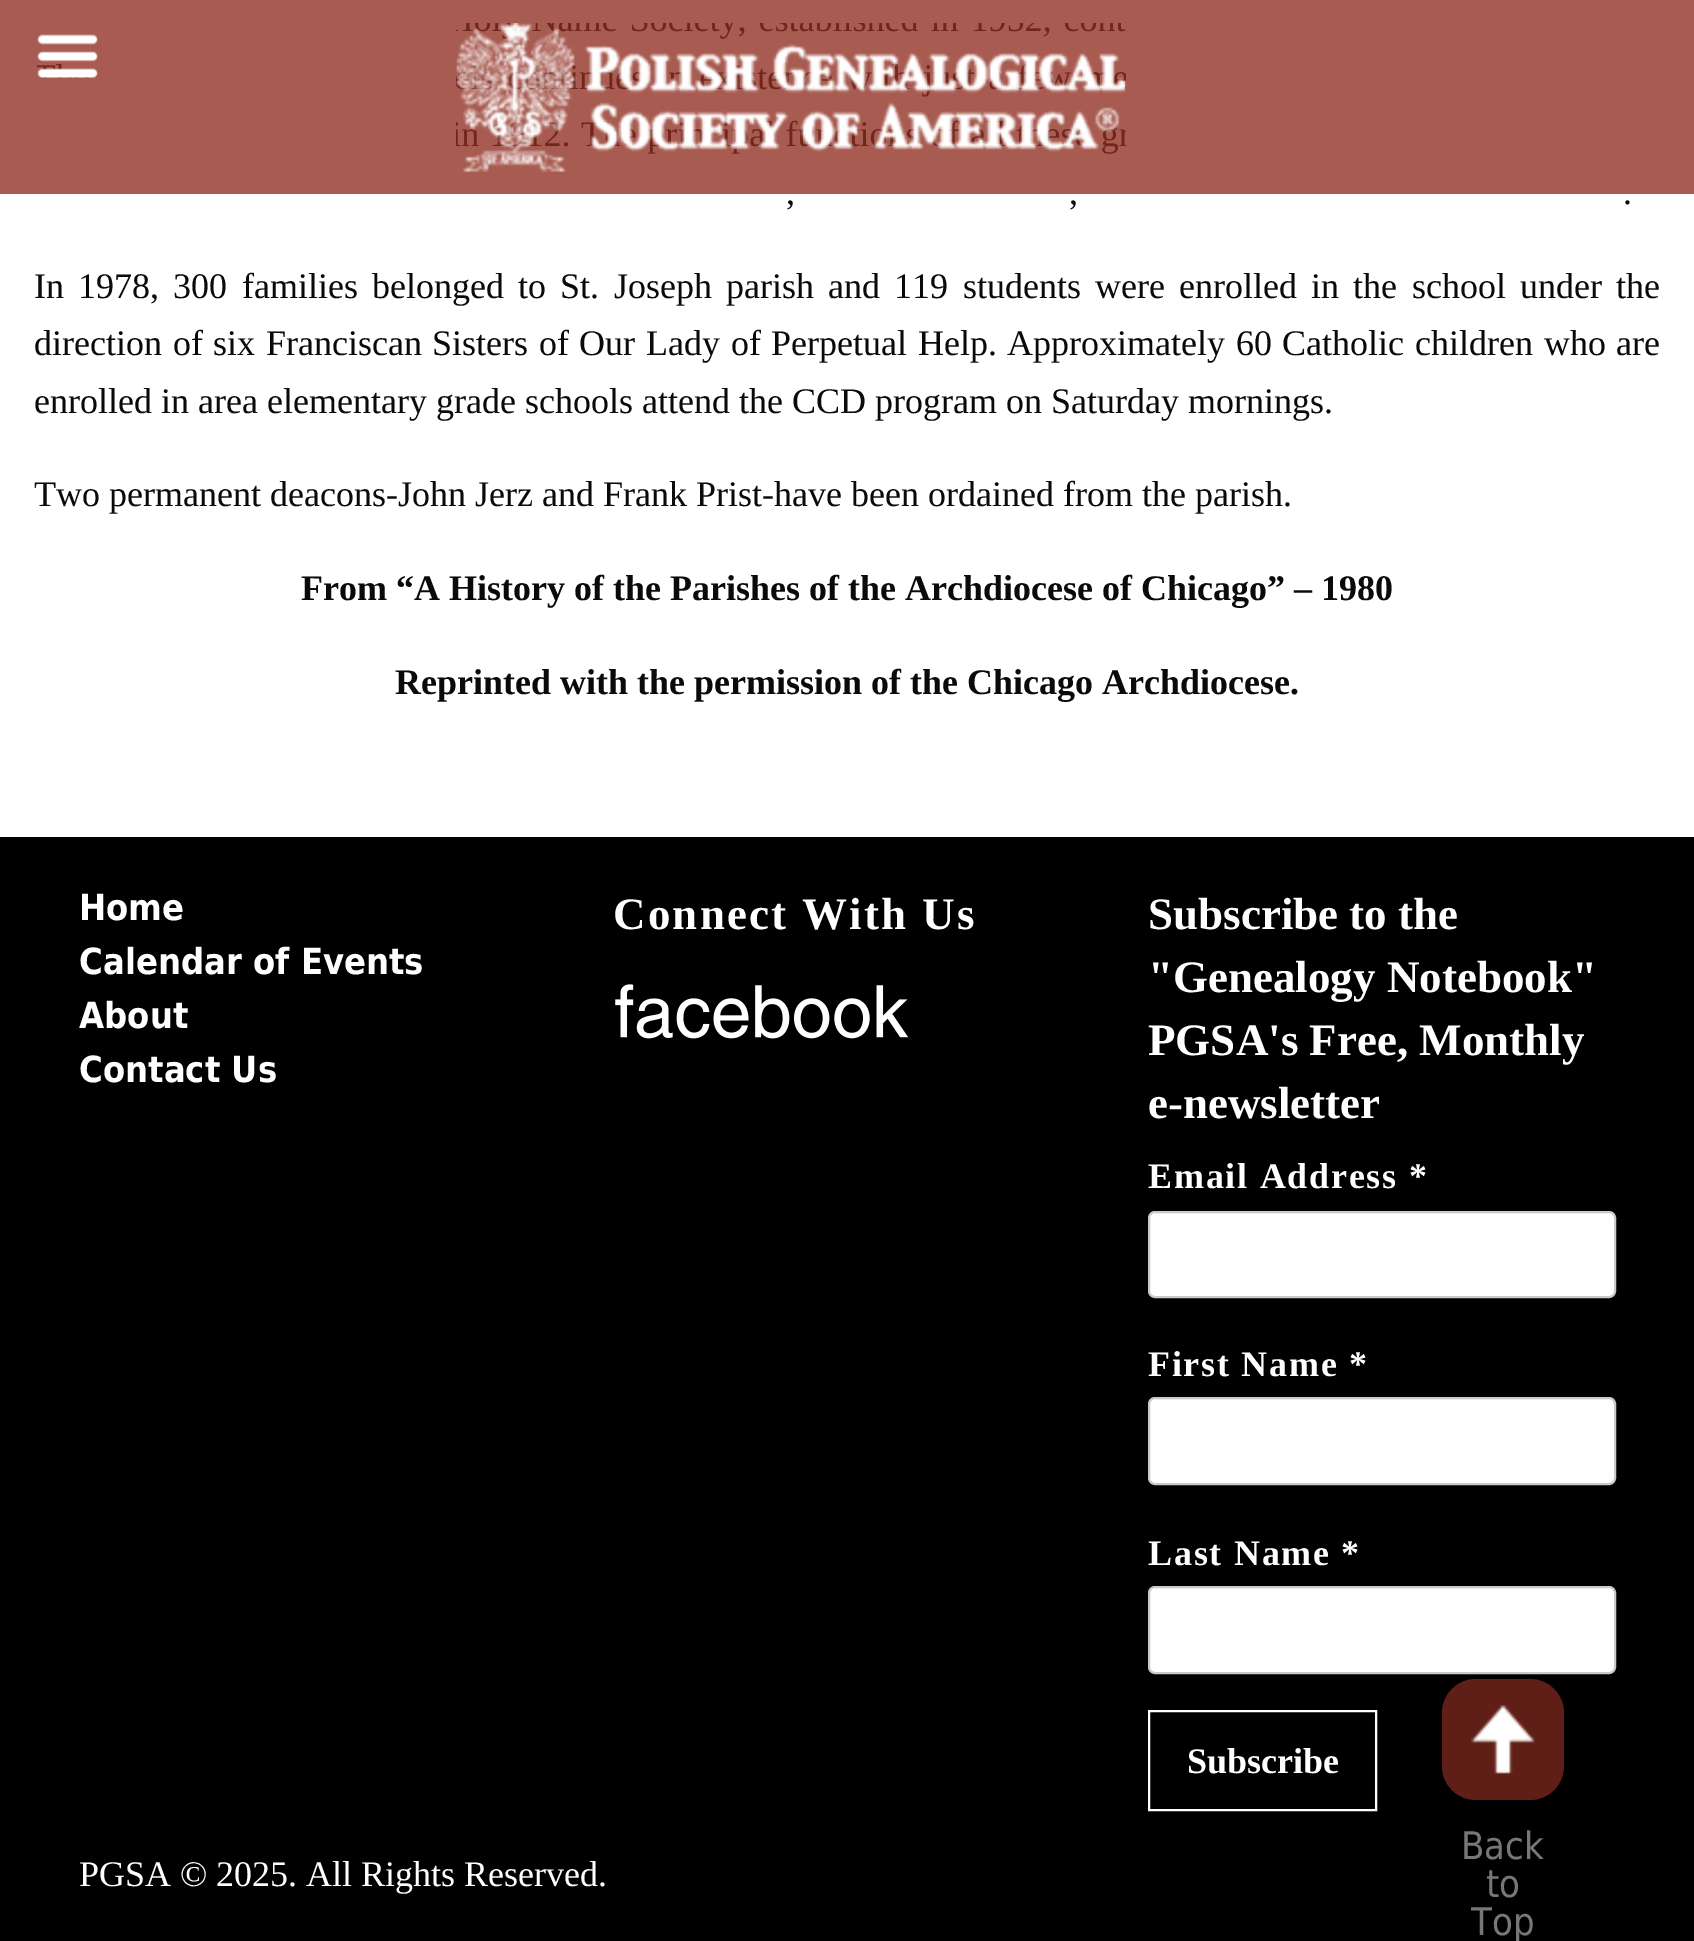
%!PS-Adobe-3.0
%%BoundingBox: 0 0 1694 1941
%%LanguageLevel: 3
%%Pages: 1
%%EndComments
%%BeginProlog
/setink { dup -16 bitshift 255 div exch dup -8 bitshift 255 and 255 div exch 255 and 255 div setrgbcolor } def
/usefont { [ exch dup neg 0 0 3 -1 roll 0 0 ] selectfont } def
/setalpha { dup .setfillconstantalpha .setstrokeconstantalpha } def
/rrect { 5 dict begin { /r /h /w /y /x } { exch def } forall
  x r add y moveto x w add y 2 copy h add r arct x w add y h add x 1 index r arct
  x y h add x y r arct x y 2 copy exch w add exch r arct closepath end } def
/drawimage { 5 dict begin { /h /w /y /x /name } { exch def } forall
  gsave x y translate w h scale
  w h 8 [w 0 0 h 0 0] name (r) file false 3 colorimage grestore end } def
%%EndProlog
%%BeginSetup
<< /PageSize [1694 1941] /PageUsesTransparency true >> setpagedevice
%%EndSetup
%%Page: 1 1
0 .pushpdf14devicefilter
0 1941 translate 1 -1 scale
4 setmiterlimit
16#FFFFFF setink
0 0 1694 1941 rectfill
0.78 setalpha
16#8F2D20 setink
0 0 1694 194 rectfill
1 setalpha
(img1.raw) 37 34 61 44 drawimage
(img2.raw) 456 23 670 149 drawimage
/LiberationSerif-Regular 36 usefont
16#0A0A0A setink
[
    [(,) 786 204]
    [(,) 1069 204]
    [(.) 1623 204]
] { aload pop moveto show } forall
34 298 moveto 5.25 0 32 (In 1978, 300 families belonged to St. Joseph parish and 119 students were enrolled in the school under the) widthshow
34 355 moveto 1.6 0 32 (direction of six Franciscan Sisters of Our Lady of Perpetual Help. Approximately 60 Catholic children who are) widthshow
34 413 moveto (enrolled in area elementary grade schools attend the CCD program on Saturday mornings.) show
34 506 moveto (Two permanent deacons-John Jerz and Frank Prist-have been ordained from the parish.) show
/LiberationSerif-Bold 36 usefont
301 600 moveto (From “A History of the Parishes of the Archdiocese of Chicago” – 1980) show
395 694 moveto (Reprinted with the permission of the Chicago Archdiocese.) show
16#000000 setink
0 837 1694 1104 rectfill
/DejaVuSans-Bold 36 usefont
16#FFFFFF setink
[
    [(Home) 79 920]
    [(Calendar of Events) 79 974]
    [(About) 79 1028]
    [(Contact Us) 79 1082]
] { aload pop moveto show } forall
/LiberationSerif-Bold 45 usefont
613 929 moveto 2.25 0 (Connect With Us) ashow
(img3.raw) 615 984 294 55 drawimage
[
    [(Subscribe to the) 1148 929]
    [("Genealogy Notebook") 1148 992]
    [(PGSA's Free, Monthly) 1148 1055]
    [(e-newsletter) 1148 1118]
] { aload pop moveto show } forall
/LiberationSerif-Bold 36 usefont
1148 1188 moveto 1.75 0 (Email Address *) ashow
16#FEFEFE setink
1149 1212 466 85 6 rrect gsave fill grestore
16#CACACA setink
2 setlinewidth
stroke
16#FFFFFF setink
1148 1376 moveto 1.75 0 (First Name *) ashow
16#FEFEFE setink
1149 1398 466 86 6 rrect gsave fill grestore
16#CACACA setink
stroke
16#FFFFFF setink
1148 1565 moveto 1.75 0 (Last Name *) ashow
16#FEFEFE setink
1149 1587 466 86 6 rrect gsave fill grestore
16#CACACA setink
stroke
16#FFFFFF setink
1149 1711 227 99 rectstroke
1187 1773 moveto (Subscribe) show
/LiberationSerif-Regular 36 usefont
79 1886 moveto (PGSA © 2025. All Rights Reserved.) show
16#5F1E16 setink
1442 1679 122 121 34 rrect fill
(img4.raw) 1471 1705 64 69 drawimage
/DejaVuSans-Regular 38 usefont
16#777777 setink
[
    [(Back) 1461 1859]
    [(to) 1486 1897]
    [(Top) 1471 1935]
] { aload pop moveto show } forall
.poppdf14devicefilter showpage
%%EOF
